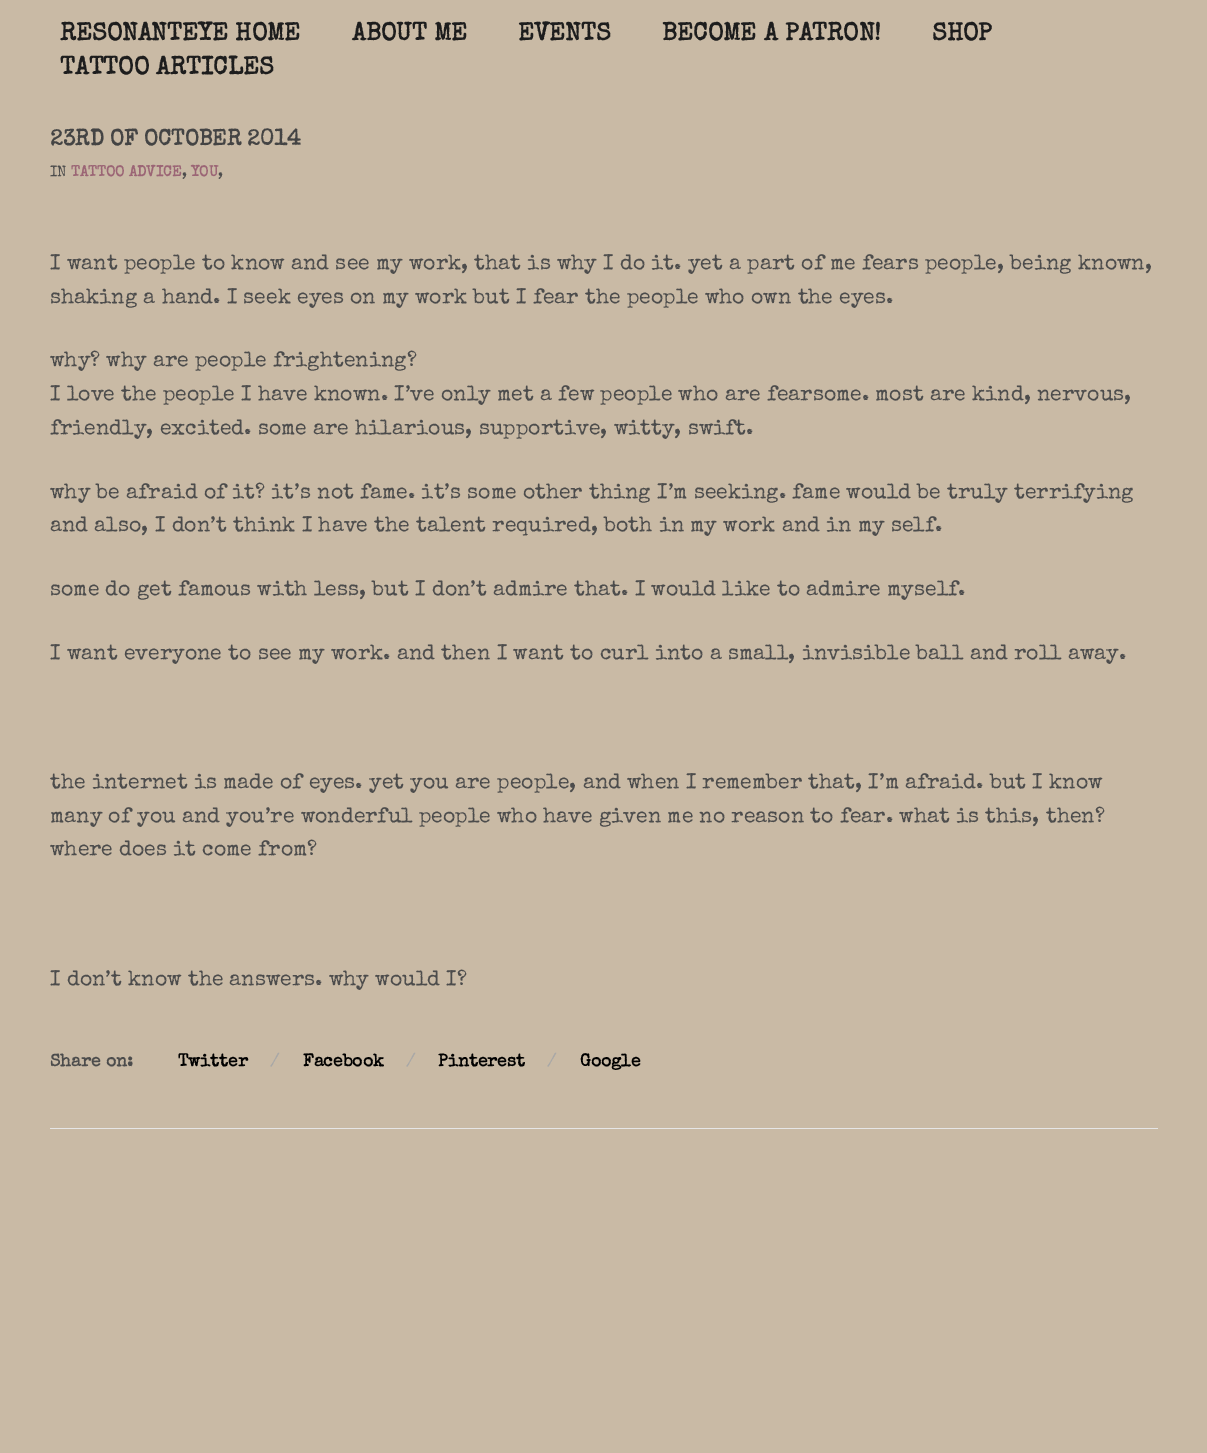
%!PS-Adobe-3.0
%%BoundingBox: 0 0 1207 1453
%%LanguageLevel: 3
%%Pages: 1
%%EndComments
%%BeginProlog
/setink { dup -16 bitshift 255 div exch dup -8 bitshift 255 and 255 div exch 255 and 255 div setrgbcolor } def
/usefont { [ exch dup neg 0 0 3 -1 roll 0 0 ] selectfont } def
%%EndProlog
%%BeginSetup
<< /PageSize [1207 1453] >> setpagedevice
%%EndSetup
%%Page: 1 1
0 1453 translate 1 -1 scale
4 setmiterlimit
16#C9BAA5 setink
0 0 1207 1453 rectfill
/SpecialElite-Bold 25 usefont
16#1D1D1D setink
[
    [(RESONANTEYE HOME) 60 40]
    [(ABOUT ME) 352 40]
    [(EVENTS) 518 40]
    [(BECOME A PATRON!) 662 40]
    [(SHOP) 932 40]
    [(TATTOO ARTICLES) 60 74]
] { aload pop moveto show } forall
/SpecialElite-Bold 22.5 usefont
16#444444 setink
50 145 moveto (23RD OF OCTOBER 2014) show
/SpecialElite-Regular 15 usefont
16#4C4C4C setink
50 176 moveto (IN) show
/SpecialElite-Bold 15 usefont
16#9B6575 setink
71 176 moveto (TATTOO ADVICE) show
/SpecialElite-Regular 15 usefont
16#4C4C4C setink
182 176 moveto (,) show
/SpecialElite-Bold 15 usefont
16#9B6575 setink
191 176 moveto (YOU) show
/SpecialElite-Regular 15 usefont
16#4C4C4C setink
218 176 moveto (,) show
/SpecialElite-Regular 21.25 usefont
[
    [(I want people to know and see my work, that is why I do it. yet a part of me fears people, being known,) 50 269]
    [(shaking a hand. I seek eyes on my work but I fear the people who own the eyes.) 50 303]
    [(why? why are people frightening?) 50 366]
    [(I love the people I have known. I’ve only met a few people who are fearsome. most are kind, nervous,) 50 400]
    [(friendly, excited. some are hilarious, supportive, witty, swift.) 50 434]
    [(why be afraid of it? it’s not fame. it’s some other thing I’m seeking. fame would be truly terrifying) 50 498]
    [(and also, I don’t think I have the talent required, both in my work and in my self.) 50 531]
    [(some do get famous with less, but I don’t admire that. I would like to admire myself.) 50 595]
    [(I want everyone to see my work. and then I want to curl into a small, invisible ball and roll away.) 50 659]
    [(the internet is made of eyes. yet you are people, and when I remember that, I’m afraid. but I know) 50 788]
    [(many of you and you’re wonderful people who have given me no reason to fear. what is this, then?) 50 822]
    [(where does it come from?) 50 855]
    [(I don’t know the answers. why would I?) 50 985]
] { aload pop moveto show } forall
/SpecialElite-Bold 17.5 usefont
50 1066 moveto (Share on:) show
16#000000 setink
178 1066 moveto (Twitter) show
/SpecialElite-Regular 17.5 usefont
16#A7A7A7 setink
270 1066 moveto (/) show
/SpecialElite-Bold 17.5 usefont
16#000000 setink
303 1066 moveto (Facebook) show
/SpecialElite-Regular 17.5 usefont
16#A7A7A7 setink
406 1066 moveto (/) show
/SpecialElite-Bold 17.5 usefont
16#000000 setink
438 1066 moveto (Pinterest) show
/SpecialElite-Regular 17.5 usefont
16#A7A7A7 setink
547 1066 moveto (/) show
/SpecialElite-Bold 17.5 usefont
16#000000 setink
580 1066 moveto (Google) show
16#E6E6E6 setink
50 1128 1108 1 rectfill
showpage
%%EOF
